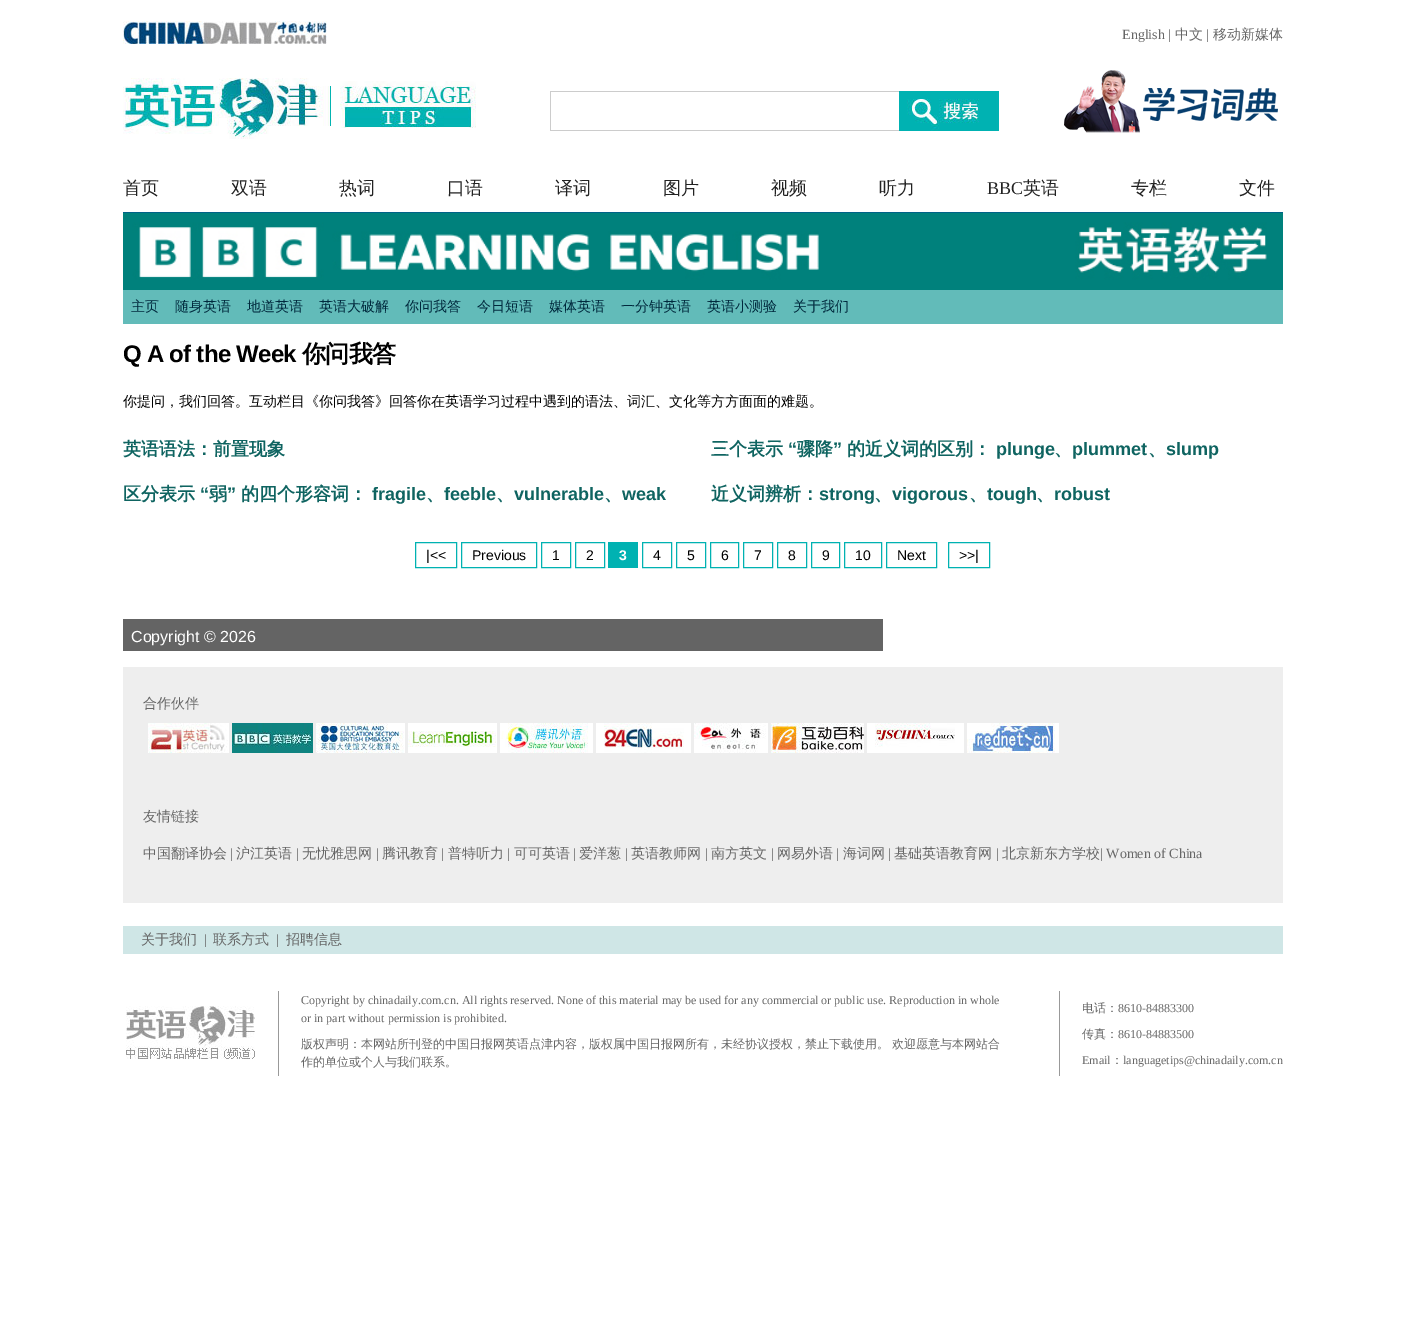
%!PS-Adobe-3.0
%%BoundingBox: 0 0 1405 1319
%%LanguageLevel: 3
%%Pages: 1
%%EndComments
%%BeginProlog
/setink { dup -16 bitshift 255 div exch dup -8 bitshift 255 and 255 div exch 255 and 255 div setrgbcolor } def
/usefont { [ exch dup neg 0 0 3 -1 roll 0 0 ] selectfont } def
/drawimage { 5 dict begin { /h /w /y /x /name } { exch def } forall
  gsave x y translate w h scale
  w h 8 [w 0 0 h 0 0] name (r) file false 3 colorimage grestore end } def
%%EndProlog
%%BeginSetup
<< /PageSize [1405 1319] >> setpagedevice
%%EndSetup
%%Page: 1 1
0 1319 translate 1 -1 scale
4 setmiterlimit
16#FFFFFF setink
0 0 1405 1319 rectfill
(img1.raw) 123 21 204 23 drawimage
/LiberationSerif-Regular 14 usefont
16#666666 setink
1122 39 moveto (English |) show
/WenQuanYiZenHei-Medium 14 usefont
1175 39 moveto (中文) show
/LiberationSerif-Regular 14 usefont
1206 39 moveto (|) show
/WenQuanYiZenHei-Medium 14 usefont
1213 39 moveto (移动新媒体) show
(img2.raw) 123 78 208 61 drawimage
(img3.raw) 340 81 136 47 drawimage
[
    [550 91 349 1 16#CCCCCC]
    [550 130 349 1 16#CCCCCC]
    [550 91 1 40 16#CCCCCC]
] { aload pop setink rectfill } forall
(img4.raw) 899 91 100 40 drawimage
(img5.raw) 1064 70 214 63 drawimage
16#006288 setink
123 212 1160 1 rectfill
/WenQuanYiZenHei-Medium 18 usefont
16#222222 setink
[
    [(首页) 123 194]
    [(双语) 231 194]
    [(热词) 339 194]
    [(口语) 447 194]
    [(译词) 555 194]
    [(图片) 663 194]
    [(视频) 771 194]
    [(听力) 879 194]
] { aload pop moveto show } forall
/LiberationSerif-Regular 18 usefont
987 194 moveto (BBC) show
/WenQuanYiZenHei-Medium 18 usefont
[
    [(英语) 1023 194]
    [(专栏) 1131 194]
    [(文件) 1239 194]
] { aload pop moveto show } forall
(img6.raw) 123 213 1160 77 drawimage
16#62BBB9 setink
123 290 1160 34 rectfill
/WenQuanYiZenHei-Medium 14 usefont
16#00293D setink
[
    [(主页) 131 311]
    [(随身英语) 175 311]
    [(地道英语) 247 311]
    [(英语大破解) 319 311]
    [(你问我答) 405 311]
    [(今日短语) 477 311]
    [(媒体英语) 549 311]
    [(一分钟英语) 621 311]
    [(英语小测验) 707 311]
    [(关于我们) 793 311]
] { aload pop moveto show } forall
/LiberationSans-Bold 24 usefont
16#000000 setink
123 362 moveto -0.75 0 (Q A of the Week) ashow
/WenQuanYiZenHei-Bold 24 usefont
302 362 moveto -0.75 0 (你问我答) ashow
/WenQuanYiZenHei-Medium 14 usefont
123 406 moveto (你提问，我们回答。互动栏目《你问我答》回答你在英语学习过程中遇到的语法、词汇、文化等方方面面的难题。) show
/WenQuanYiZenHei-Bold 18 usefont
16#0F6461 setink
123 455 moveto (英语语法：前置现象) show
711 455 moveto (三个表示) show
/LiberationSans-Bold 18 usefont
788 455 moveto (“) show
/WenQuanYiZenHei-Bold 18 usefont
797 455 moveto (骤降) show
/LiberationSans-Bold 18 usefont
833 455 moveto (”) show
/WenQuanYiZenHei-Bold 18 usefont
847 455 moveto (的近义词的区别：) show
/LiberationSans-Bold 18 usefont
[
    [(plunge) 996 455]
    [(plummet) 1072 455]
    [(slump) 1166 455]
] { aload pop moveto show } forall
/WenQuanYiZenHei-Bold 18 usefont
[
    [(、) 1054 455]
    [(、) 1148 455]
    [(区分表示) 123 500]
] { aload pop moveto show } forall
/LiberationSans-Bold 18 usefont
200 500 moveto (“) show
/WenQuanYiZenHei-Bold 18 usefont
209 500 moveto (弱) show
/LiberationSans-Bold 18 usefont
227 500 moveto (”) show
/WenQuanYiZenHei-Bold 18 usefont
241 500 moveto (的四个形容词：) show
/LiberationSans-Bold 18 usefont
[
    [(fragile) 372 500]
    [(feeble) 444 500]
    [(vulnerable) 514 500]
    [(weak) 622 500]
] { aload pop moveto show } forall
/WenQuanYiZenHei-Bold 18 usefont
[
    [(、) 426 500]
    [(、) 496 500]
    [(、) 604 500]
    [(近义词辨析：) 711 500]
] { aload pop moveto show } forall
/LiberationSans-Bold 18 usefont
819 500 moveto (strong) show
/WenQuanYiZenHei-Bold 18 usefont
874 500 moveto (、) show
/LiberationSans-Bold 18 usefont
892 500 moveto (vigorous) show
/WenQuanYiZenHei-Bold 18 usefont
969 500 moveto (、) show
/LiberationSans-Bold 18 usefont
987 500 moveto (tough) show
/WenQuanYiZenHei-Bold 18 usefont
1036 500 moveto (、) show
/LiberationSans-Bold 18 usefont
1054 500 moveto (robust) show
16#00B2B2 setink
415.5 542.5 41 25 rectstroke
/LiberationSans-Regular 14 usefont
16#000000 setink
426 560 moveto (|<<) show
16#00B2B2 setink
461.5 542.5 75 25 rectstroke
16#000000 setink
472 560 moveto (Previous) show
16#00B2B2 setink
541.5 542.5 29 25 rectstroke
16#000000 setink
552 560 moveto (1) show
16#00B2B2 setink
575.5 542.5 29 25 rectstroke
16#000000 setink
586 560 moveto (2) show
16#00B2B2 setink
608 542 30 26 rectfill
/LiberationSans-Bold 14 usefont
16#FFFFFF setink
619 560 moveto (3) show
16#00B2B2 setink
642.5 542.5 29 25 rectstroke
/LiberationSans-Regular 14 usefont
16#000000 setink
653 560 moveto (4) show
16#00B2B2 setink
676.5 542.5 29 25 rectstroke
16#000000 setink
687 560 moveto (5) show
16#00B2B2 setink
710.5 542.5 28 25 rectstroke
16#000000 setink
721 560 moveto (6) show
16#00B2B2 setink
743.5 542.5 29 25 rectstroke
16#000000 setink
754 560 moveto (7) show
16#00B2B2 setink
777.5 542.5 29 25 rectstroke
16#000000 setink
788 560 moveto (8) show
16#00B2B2 setink
811.5 542.5 28 25 rectstroke
16#000000 setink
822 560 moveto (9) show
16#00B2B2 setink
844.5 542.5 37 25 rectstroke
16#000000 setink
855 560 moveto (10) show
16#00B2B2 setink
886.5 542.5 50 25 rectstroke
16#000000 setink
897 560 moveto (Next) show
16#00B2B2 setink
948.5 542.5 41 25 rectstroke
16#000000 setink
959 560 moveto (>>|) show
16#646464 setink
123 619 760 32 rectfill
/LiberationSans-Regular 16 usefont
16#FFFFFF setink
131 642 moveto (Copyright © 2026) show
16#EEEEEE setink
123 667 1160 236 rectfill
/WenQuanYiZenHei-Medium 14 usefont
16#666666 setink
143 708 moveto (合作伙伴) show
(img7.raw) 148 723 81 30 drawimage
(img8.raw) 232 723 81 30 drawimage
(img9.raw) 316 723 89 30 drawimage
(img10.raw) 408 723 89 30 drawimage
(img11.raw) 500 723 93 30 drawimage
(img12.raw) 596 723 95 30 drawimage
(img13.raw) 694 723 74 30 drawimage
(img14.raw) 771 723 93 30 drawimage
(img15.raw) 867 723 97 30 drawimage
(img16.raw) 967 723 92 30 drawimage
143 821 moveto (友情链接) show
143 858 moveto (中国翻译协会) show
/LiberationSerif-Regular 14 usefont
230 858 moveto (|) show
/WenQuanYiZenHei-Medium 14 usefont
236 858 moveto (沪江英语) show
/LiberationSerif-Regular 14 usefont
296 858 moveto (|) show
/WenQuanYiZenHei-Medium 14 usefont
302 858 moveto (无忧雅思网) show
/LiberationSerif-Regular 14 usefont
376 858 moveto (|) show
/WenQuanYiZenHei-Medium 14 usefont
382 858 moveto (腾讯教育) show
/LiberationSerif-Regular 14 usefont
441 858 moveto (|) show
/WenQuanYiZenHei-Medium 14 usefont
448 858 moveto (普特听力) show
/LiberationSerif-Regular 14 usefont
507 858 moveto (|) show
/WenQuanYiZenHei-Medium 14 usefont
514 858 moveto (可可英语) show
/LiberationSerif-Regular 14 usefont
573 858 moveto (|) show
/WenQuanYiZenHei-Medium 14 usefont
579 858 moveto (爱洋葱) show
/LiberationSerif-Regular 14 usefont
625 858 moveto (|) show
/WenQuanYiZenHei-Medium 14 usefont
631 858 moveto (英语教师网) show
/LiberationSerif-Regular 14 usefont
705 858 moveto (|) show
/WenQuanYiZenHei-Medium 14 usefont
711 858 moveto (南方英文) show
/LiberationSerif-Regular 14 usefont
771 858 moveto (|) show
/WenQuanYiZenHei-Medium 14 usefont
777 858 moveto (网易外语) show
/LiberationSerif-Regular 14 usefont
836 858 moveto (|) show
/WenQuanYiZenHei-Medium 14 usefont
843 858 moveto (海词网) show
/LiberationSerif-Regular 14 usefont
888 858 moveto (|) show
/WenQuanYiZenHei-Medium 14 usefont
894 858 moveto (基础英语教育网) show
/LiberationSerif-Regular 14 usefont
996 858 moveto (|) show
/WenQuanYiZenHei-Medium 14 usefont
1002 858 moveto (北京新东方学校) show
/LiberationSerif-Regular 14 usefont
1100 858 moveto (| Women of China) show
16#CFE6E6 setink
123 926 1160 28 rectfill
/WenQuanYiZenHei-Medium 14 usefont
16#666666 setink
141 944 moveto (关于我们) show
/LiberationSerif-Regular 14 usefont
204 944 moveto (|) show
/WenQuanYiZenHei-Medium 14 usefont
213 944 moveto (联系方式) show
/LiberationSerif-Regular 14 usefont
276 944 moveto (|) show
/WenQuanYiZenHei-Medium 14 usefont
286 944 moveto (招聘信息) show
(img17.raw) 126 1006 129 53 drawimage
16#999999 setink
278 991 1 85 rectfill
/LiberationSerif-Regular 12 usefont
16#666666 setink
301 1004 moveto (Copyright by chinadaily.com.cn. All rights reserved. None of this material may be used for any commercial or public use. Reproduction in whole) show
301 1022 moveto (or in part without permission is prohibited.) show
/WenQuanYiZenHei-Medium 12 usefont
301 1048 moveto -1 0 32 (版权声明：本网站所刊登的中国日报网英语点津内容，版权属中国日报网所有，未经协议授权，禁止下载使用。 欢迎愿意与本网站合) widthshow
301 1066 moveto (作的单位或个人与我们联系。) show
16#999999 setink
1059 991 1 85 rectfill
16#666666 setink
1082 1012 moveto (电话：) show
/LiberationSerif-Regular 12 usefont
1118 1012 moveto (8610-84883300) show
/WenQuanYiZenHei-Medium 12 usefont
1082 1038 moveto (传真：) show
/LiberationSerif-Regular 12 usefont
1118 1038 moveto (8610-84883500) show
1082 1064 moveto (Email) show
/WenQuanYiZenHei-Medium 12 usefont
1111 1064 moveto (：) show
/LiberationSerif-Regular 12 usefont
1123 1064 moveto (languagetips@chinadaily.com.cn) show
showpage
%%EOF
